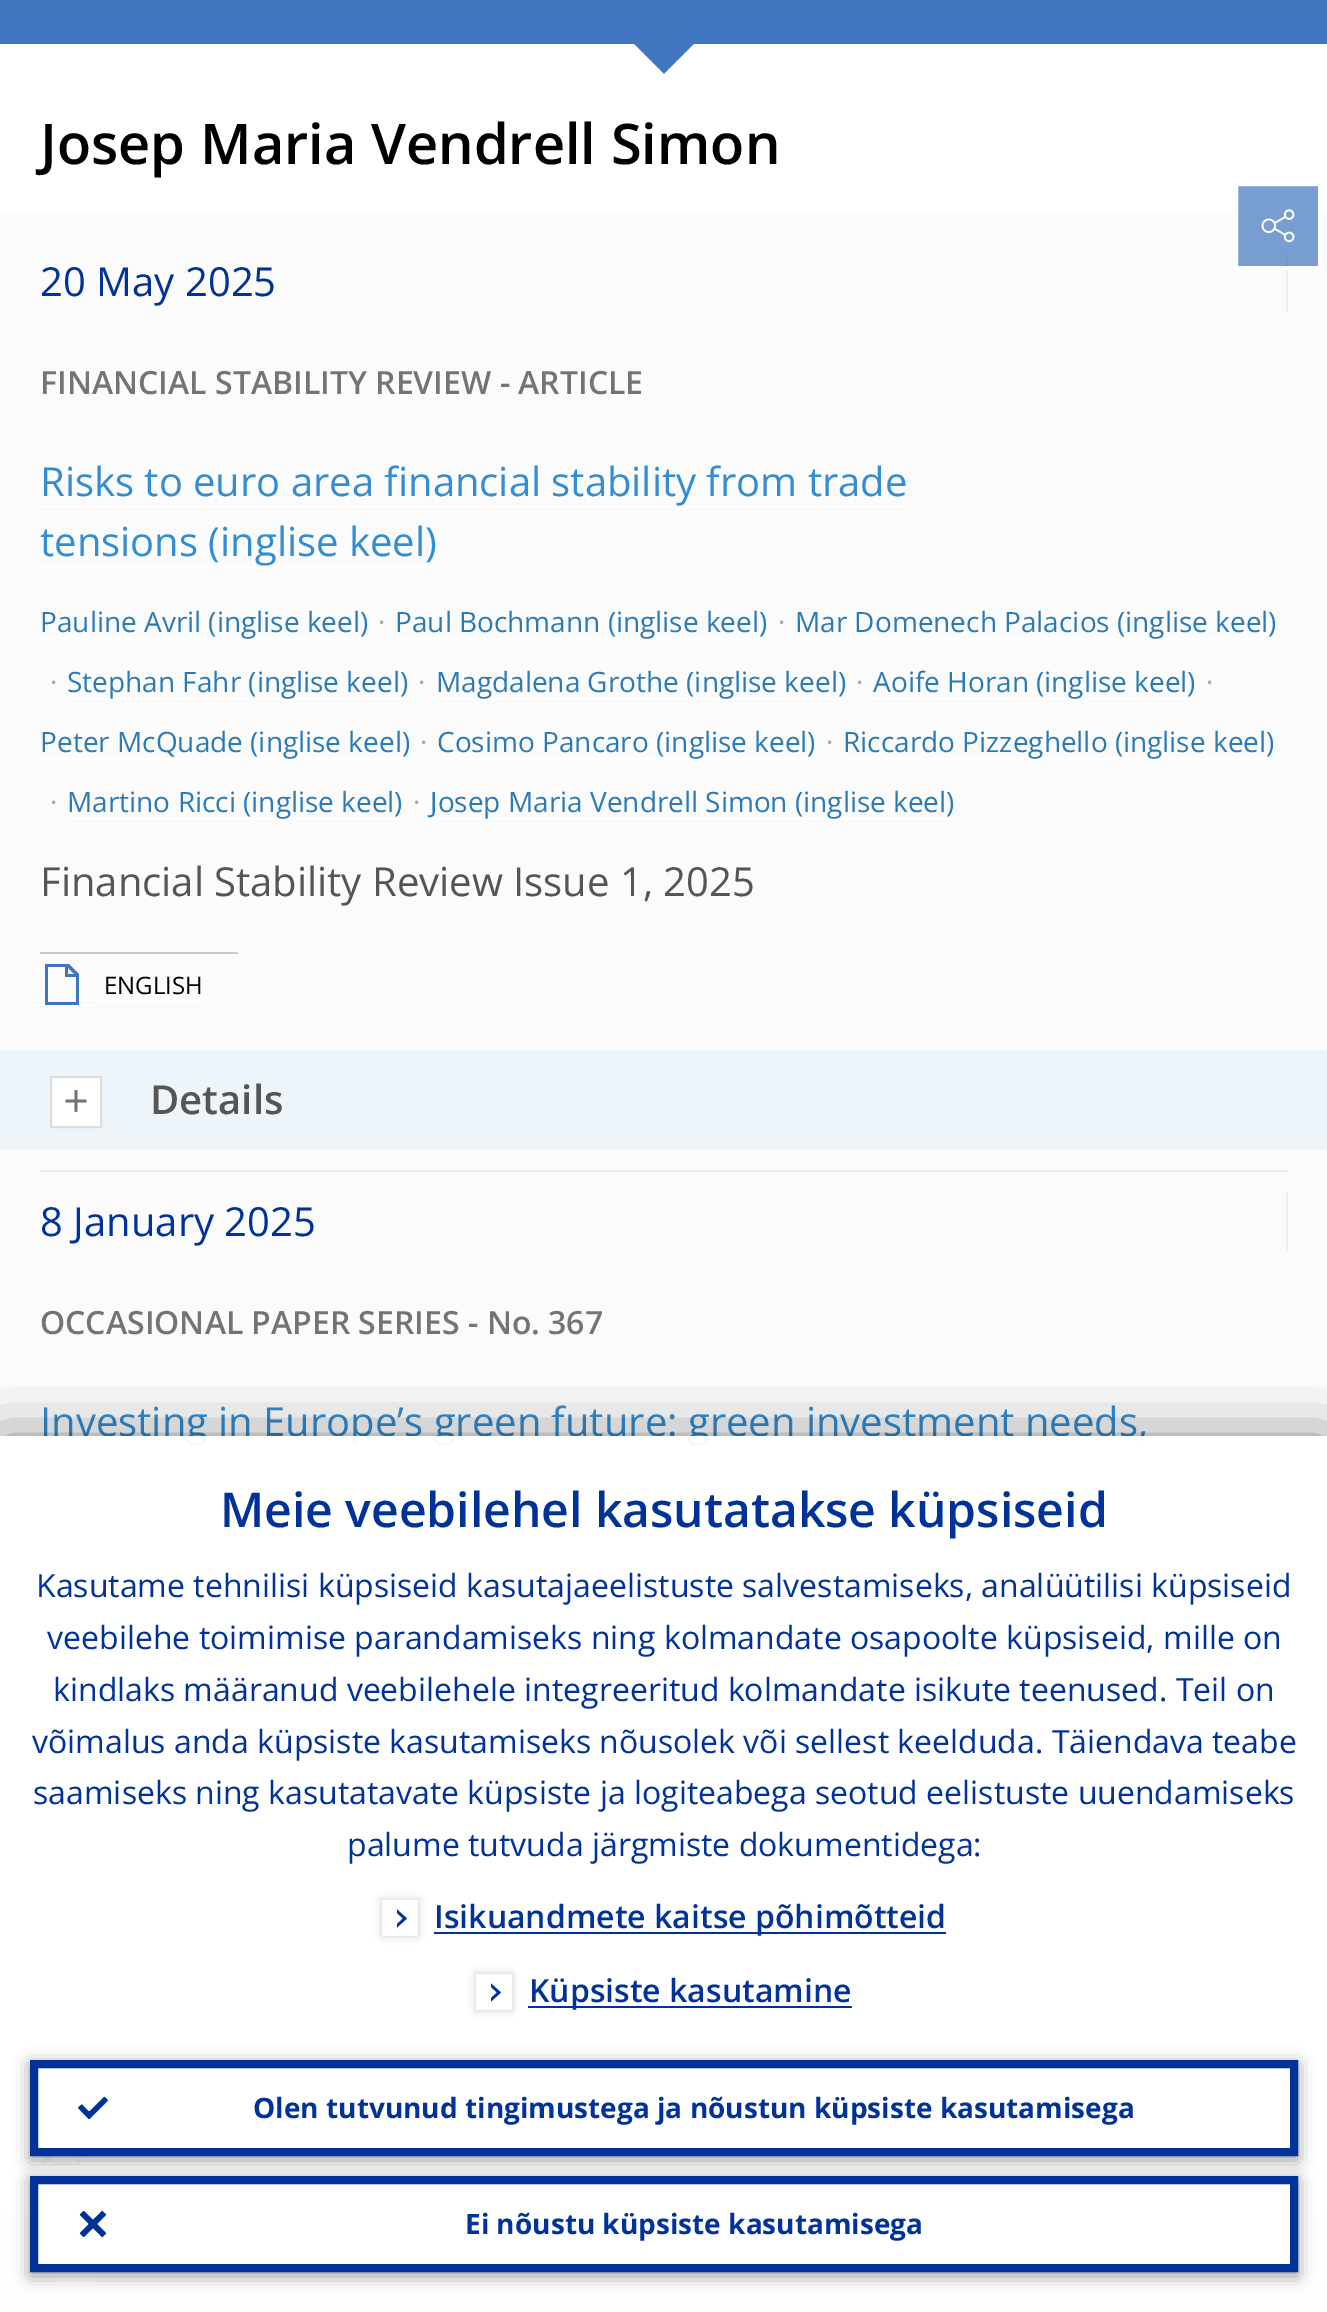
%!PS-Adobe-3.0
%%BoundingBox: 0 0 1327 2312
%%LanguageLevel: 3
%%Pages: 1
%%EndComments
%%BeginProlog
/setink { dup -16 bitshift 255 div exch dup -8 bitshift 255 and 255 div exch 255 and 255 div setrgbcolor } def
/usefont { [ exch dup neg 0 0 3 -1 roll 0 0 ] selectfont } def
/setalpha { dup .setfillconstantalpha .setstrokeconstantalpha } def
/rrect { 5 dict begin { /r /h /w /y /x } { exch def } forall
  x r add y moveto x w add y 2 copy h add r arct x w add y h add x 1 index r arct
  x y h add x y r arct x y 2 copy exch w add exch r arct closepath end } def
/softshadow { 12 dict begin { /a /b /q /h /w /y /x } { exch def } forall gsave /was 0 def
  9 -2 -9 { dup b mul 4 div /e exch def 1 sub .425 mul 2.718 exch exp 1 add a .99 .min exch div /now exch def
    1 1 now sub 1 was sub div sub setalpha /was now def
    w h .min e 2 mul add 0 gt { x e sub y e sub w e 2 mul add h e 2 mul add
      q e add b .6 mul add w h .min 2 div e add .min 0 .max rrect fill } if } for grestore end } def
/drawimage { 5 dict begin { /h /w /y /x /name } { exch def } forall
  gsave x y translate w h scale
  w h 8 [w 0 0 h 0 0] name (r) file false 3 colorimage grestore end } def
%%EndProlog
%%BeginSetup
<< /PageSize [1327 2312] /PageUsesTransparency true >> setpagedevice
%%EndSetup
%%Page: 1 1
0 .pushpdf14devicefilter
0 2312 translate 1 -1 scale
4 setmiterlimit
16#FFFFFF setink
0 0 1327 2312 rectfill
16#799FD2 setink
1238 186 80 26 rectfill
16#4076BF setink
0 0 1327 74 rectfill
gsave
0 0 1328 74 rectclip
16#FFFFFF setink
-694 44 moveto 634 44 lineto 694 104 lineto -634 104 lineto closepath fill
694 44 moveto 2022 44 lineto 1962 104 lineto 634 104 lineto closepath fill
grestore
/OpenSans-SemiBold 56 usefont
16#000000 setink
40 164 moveto (Josep Maria Vendrell Simon) show
16#FBFBFB setink
0 212 1327 2100 rectfill
16#789ED1 setink
1238 212 80 54 rectfill
/OpenSans-Regular 40 usefont
16#003299 setink
40 296 moveto (20 May 2025) show
16#EEEEEE setink
1286 266 2 46 rectfill
16#749ACD setink
1286 252 2 14 rectfill
/OpenSans-SemiBold 32 usefont
16#747474 setink
40 394 moveto (FINANCIAL STABILITY REVIEW - ARTICLE) show
/OpenSans-Regular 40 usefont
16#328DD2 setink
40 496 moveto (Risks to euro area financial stability from trade) show
16#FFFFFF setink
40 506 868 2 rectfill
16#328DD2 setink
40 556 moveto (tensions \(inglise keel\)) show
16#FFFFFF setink
40 566 396 2 rectfill
40 638 328 2 rectfill
/OpenSans-Regular 28 usefont
16#2B7AB6 setink
40 632 moveto (Pauline Avril \(inglise keel\)) show
16#A8A9A9 setink
378 632 moveto (·) show
16#FFFFFF setink
796 638 480 2 rectfill
16#2B7AB6 setink
795 632 moveto (Mar Domenech Palacios \(inglise keel\)) show
16#A8A9A9 setink
50 692 moveto (·) show
16#FFFFFF setink
396 638 372 2 rectfill
16#2B7AB6 setink
395 632 moveto (Paul Bochmann \(inglise keel\)) show
16#A8A9A9 setink
778 632 moveto (·) show
16#FFFFFF setink
68 698 340 2 rectfill
16#2B7AB6 setink
67 692 moveto (Stephan Fahr \(inglise keel\)) show
16#A8A9A9 setink
418 692 moveto (·) show
16#FFFFFF setink
436 698 410 2 rectfill
16#2B7AB6 setink
436 692 moveto (Magdalena Grothe \(inglise keel\)) show
16#A8A9A9 setink
856 692 moveto (·) show
16#FFFFFF setink
872 698 324 2 rectfill
16#2B7AB6 setink
873 692 moveto (Aoife Horan \(inglise keel\)) show
16#A8A9A9 setink
1206 692 moveto (·) show
16#FFFFFF setink
40 758 370 2 rectfill
16#2B7AB6 setink
40 752 moveto (Peter McQuade \(inglise keel\)) show
16#A8A9A9 setink
420 752 moveto (·) show
16#FFFFFF setink
844 758 430 2 rectfill
16#2B7AB6 setink
843 752 moveto (Riccardo Pizzeghello \(inglise keel\)) show
16#A8A9A9 setink
50 812 moveto (·) show
16#FFFFFF setink
438 758 378 2 rectfill
16#2B7AB6 setink
437 752 moveto (Cosimo Pancaro \(inglise keel\)) show
16#A8A9A9 setink
826 752 moveto (·) show
16#FFFFFF setink
68 818 336 2 rectfill
16#2B7AB6 setink
67 812 moveto (Martino Ricci \(inglise keel\)) show
16#A8A9A9 setink
413 812 moveto (·) show
16#FFFFFF setink
430 818 526 2 rectfill
16#2B7AB6 setink
430 812 moveto (Josep Maria Vendrell Simon \(inglise keel\)) show
/OpenSans-Regular 40 usefont
16#555555 setink
40 896 moveto (Financial Stability Review Issue 1, 2025) show
[
    [40 952 198 2 16#C9C9C9]
    [26 1004 72 2 16#FFFFFF]
    [98 1000 106 2 16#FFFFFF]
] { aload pop setink rectfill } forall
16#4076BF setink
69 964 moveto 45 964 lineto 45 1005 lineto 79 1005 lineto 79 974 lineto closepath 68 968 moveto 74 974 lineto 68 974 lineto closepath 48 1002 moveto 48 967 lineto 65 967 lineto 65 977 lineto 76 977 lineto 76 1002 lineto closepath fill
/OpenSans-Regular 24 usefont
16#000000 setink
104 994 moveto (ENGLISH) show
16#EDF5FA setink
0 1050 1327 100 rectfill
16#FFFFFF setink
51 1077 moveto 101 1077 lineto 101 1127 lineto 51 1127 lineto closepath gsave fill grestore
16#DDDDDD setink
2 setlinewidth
stroke
(img1.raw) 65 1090 22 22 drawimage
/OpenSans-SemiBold 40 usefont
16#555555 setink
150 1114 moveto (Details) show
16#EEEEEE setink
40 1170 1248 2 rectfill
/OpenSans-Regular 40 usefont
16#003299 setink
40 1236 moveto (8 January 2025) show
16#EEEEEE setink
1286 1192 2 60 rectfill
/OpenSans-SemiBold 32 usefont
16#747474 setink
40 1334 moveto (OCCASIONAL PAPER SERIES - No. 367) show
/OpenSans-Regular 40 usefont
16#328DD2 setink
40 1436 moveto (Investing in Europe’s green future: green investment needs,) show
[
    [40 1446 1108 2 16#FFFFFF]
    [40 1506 1000 2 16#FFFFFF]
    [40 1578 360 2 16#FFFFFF]
    [428 1578 432 2 16#FFFFFF]
    [886 1578 386 2 16#FFFFFF]
    [68 1638 338 2 16#FFFFFF]
    [434 1638 396 2 16#FFFFFF]
    [856 1638 120 2 16#FFFFFF]
    [40 1698 306 2 16#FFFFFF]
    [374 1698 408 2 16#FFFFFF]
    [808 1698 406 2 16#FFFFFF]
    [40 1758 418 2 16#FFFFFF]
    [486 1758 360 2 16#FFFFFF]
    [874 1758 68 2 16#FFFFFF]
    [40 1818 384 2 16#FFFFFF]
    [452 1818 394 2 16#FFFFFF]
    [874 1818 102 2 16#FFFFFF]
    [40 1878 332 2 16#FFFFFF]
    [398 1878 468 2 16#FFFFFF]
    [894 1878 122 2 16#FFFFFF]
    [40 1938 286 2 16#FFFFFF]
    [352 1938 330 2 16#FFFFFF]
    [710 1938 396 2 16#FFFFFF]
    [1134 1938 70 2 16#FFFFFF]
    [40 1998 312 2 16#FFFFFF]
    [380 1998 524 2 16#FFFFFF]
    [932 1998 130 2 16#FFFFFF]
    [40 2058 228 2 16#FFFFFF]
    [296 2058 436 2 16#FFFFFF]
    [26 2164 72 2 16#FFFFFF]
    [98 2160 106 2 16#FFFFFF]
] { aload pop setink rectfill } forall
(img2.raw) 41 2156 42 9 drawimage
16#EDF5FA setink
0 2210 1327 100 rectfill
16#FFFFFF setink
52 2272 48 14 rectfill
16#DDDDDD setink
51 2237 50 50 rectstroke
0.9 setalpha
16#FFFFFF setink
4 setlinewidth
1236 184 84 84 rectstroke
1 setalpha
(img3.raw) 1261 209 34 34 drawimage
gsave
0 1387 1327 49 rectclip
16#000000 setink
0 1440 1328 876 0 30 0.5 softshadow
grestore
0.95 setalpha
0 1436 1327 876 rectfill
/OpenSans-SemiBold 48 usefont
1 setalpha
16#003299 setink
220 1527 moveto (Meie veebilehel kasutatakse küpsiseid) show
/OpenSans-Regular 32 usefont
[
    [(Kasutame tehnilisi küpsiseid kasutajaeelistuste salvestamiseks, analüütilisi küpsiseid) 36 1597]
    [(veebilehe toimimise parandamiseks ning kolmandate osapoolte küpsiseid, mille on) 47 1649]
    [(kindlaks määranud veebilehele integreeritud kolmandate isikute teenused. Teil on) 53 1701]
    [(võimalus anda küpsiste kasutamiseks nõusolek või sellest keelduda. Täiendava teabe) 32 1753]
    [(saamiseks ning kasutatavate küpsiste ja logiteabega seotud eelistuste uuendamiseks) 33 1804]
    [(palume tutvuda järgmiste dokumentidega:) 347 1856]
] { aload pop moveto show } forall
16#000000 setink
382 1900 36 36 0 4 0.2 softshadow
16#FFFFFF setink
382 1900 36 36 rectfill
16#003299 setink
407 1918.5 moveto 397 1927.5 lineto 397 1924 lineto 403 1918.5 lineto 397 1913 lineto 397 1909.5 lineto closepath fill
434 1932 512 2 rectfill
/OpenSans-SemiBold 32 usefont
434 1928 moveto (Isikuandmete kaitse põhimõtteid) show
16#000000 setink
476 1974 36 36 0 4 0.2 softshadow
16#FFFFFF setink
476 1974 36 36 rectfill
16#003299 setink
501 1992.5 moveto 491 2001.5 lineto 491 1998 lineto 497 1992.5 lineto 491 1987 lineto 491 1983.5 lineto closepath fill
528 2006 324 2 rectfill
529 2002 moveto (Küpsiste kasutamine) show
16#000000 setink
30 2064 1268 96 0 8 0.4 softshadow
16#FFFFFF setink
34 2064 moveto 1294 2064 lineto 1294 2152 lineto 34 2152 lineto closepath gsave fill grestore
16#003299 setink
8 setlinewidth
stroke
(img4.raw) 78 2096 30 24 drawimage
/OpenSans-Bold 28 usefont
253 2118 moveto (Olen tutvunud tingimustega ja nõustun küpsiste kasutamisega) show
16#000000 setink
30 2180 1268 96 0 8 0.4 softshadow
16#FFFFFF setink
34 2180 moveto 1294 2180 lineto 1294 2268 lineto 34 2268 lineto closepath gsave fill grestore
16#003299 setink
stroke
(img5.raw) 79 2210 28 28 drawimage
465 2234 moveto (Ei nõustu küpsiste kasutamisega) show
.poppdf14devicefilter showpage
%%EOF
